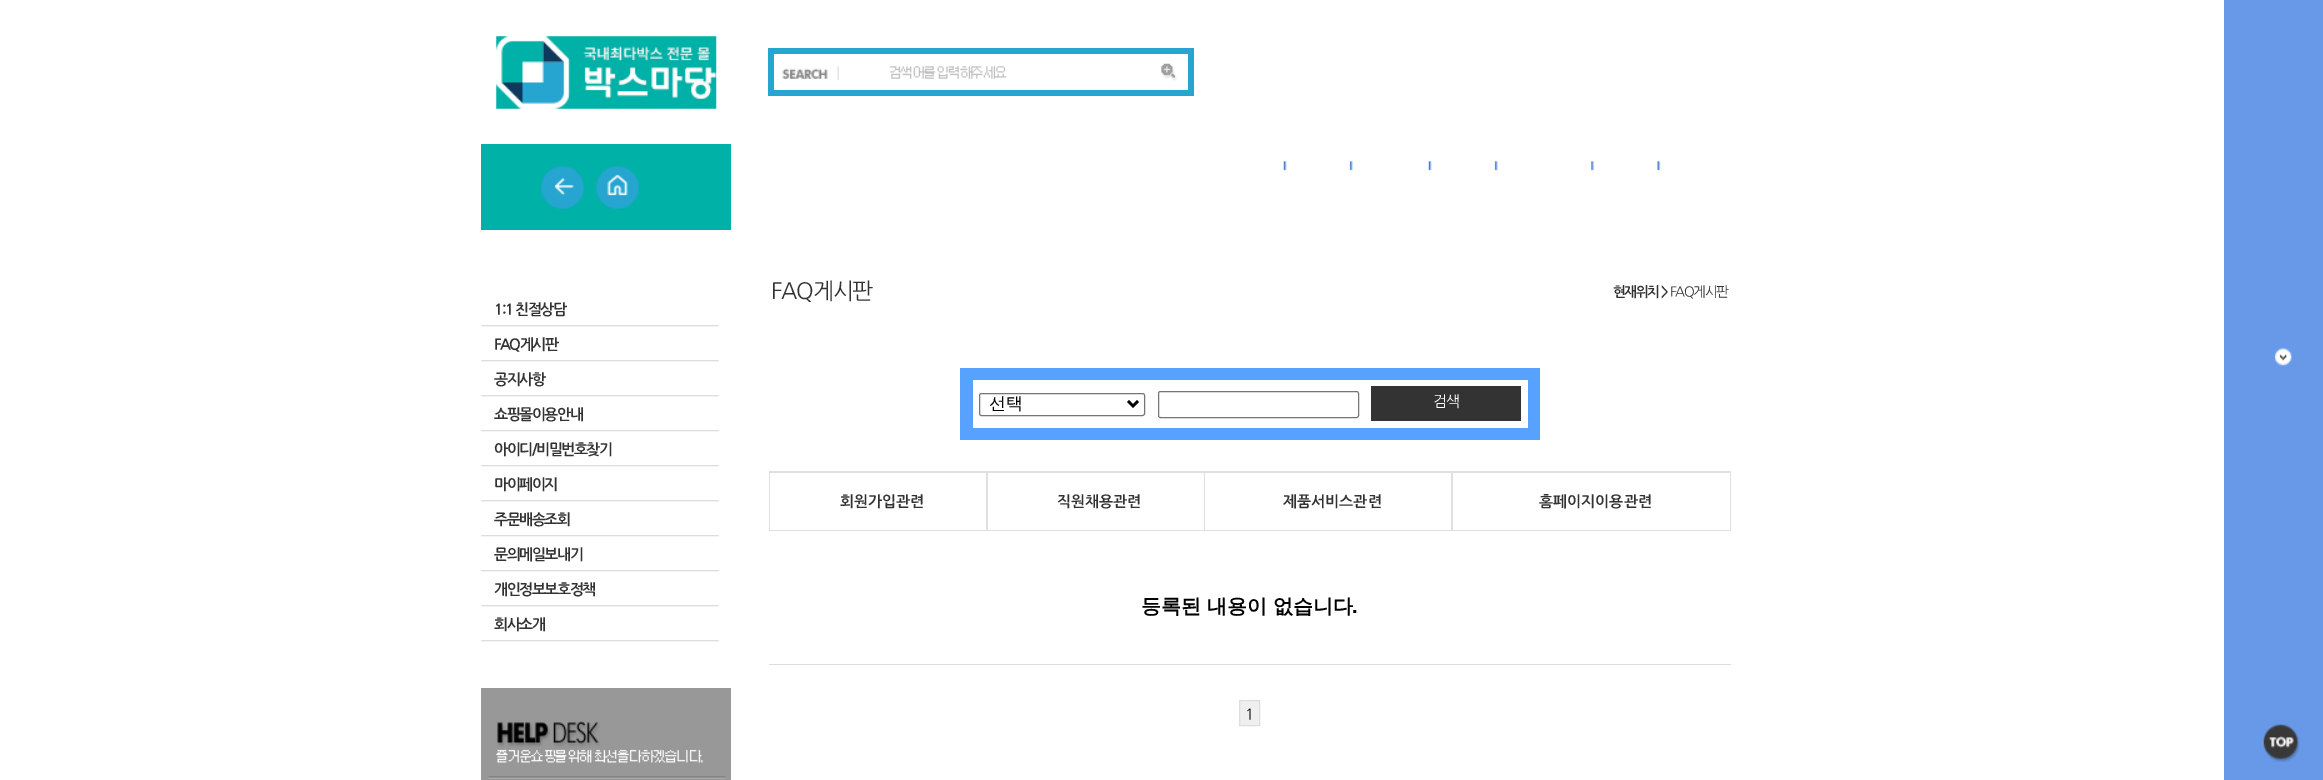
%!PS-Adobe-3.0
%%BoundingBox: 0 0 2323 780
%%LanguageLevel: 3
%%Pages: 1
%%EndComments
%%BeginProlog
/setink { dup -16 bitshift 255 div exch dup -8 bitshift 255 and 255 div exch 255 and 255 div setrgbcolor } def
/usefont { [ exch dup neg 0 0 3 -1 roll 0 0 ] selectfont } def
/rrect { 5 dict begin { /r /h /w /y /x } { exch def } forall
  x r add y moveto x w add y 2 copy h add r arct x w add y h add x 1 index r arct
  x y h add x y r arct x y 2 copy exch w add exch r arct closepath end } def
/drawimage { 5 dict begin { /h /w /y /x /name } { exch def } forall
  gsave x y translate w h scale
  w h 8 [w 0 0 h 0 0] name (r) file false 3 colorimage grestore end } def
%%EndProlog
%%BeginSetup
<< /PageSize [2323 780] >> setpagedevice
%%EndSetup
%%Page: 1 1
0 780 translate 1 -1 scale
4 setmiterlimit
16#FFFFFF setink
0 0 2323 780 rectfill
(img1.raw) 496 36 221 73 drawimage
16#26A5D1 setink
768 48 426 48 rectfill
16#FFFFFF setink
774 54 414 36 rectfill
(img2.raw) 782 66 57 14 drawimage
(img3.raw) 890 66 117 13 drawimage
(img4.raw) 1161 63 16 18 drawimage
16#00B1A7 setink
481 144 250 86 rectfill
(img5.raw) 541 166 43 43 drawimage
(img6.raw) 596 166 43 43 drawimage
(img7.raw) 1283 161 4 10 drawimage
(img8.raw) 1349 161 4 10 drawimage
(img7.raw) 1428 161 4 10 drawimage
(img8.raw) 1494 161 4 10 drawimage
(img9.raw) 1591 161 3 10 drawimage
(img10.raw) 1657 161 4 10 drawimage
/NanumGothic-Bold 15 usefont
16#333333 setink
494 314 moveto -1.5 0 (1:1 친절상담) ashow
(img11.raw) 481 325 238 2 drawimage
494 349 moveto -1.5 0 (FAQ게시판) ashow
(img12.raw) 481 360 238 2 drawimage
494 384 moveto -1.5 0 (공지사항) ashow
(img12.raw) 481 395 238 2 drawimage
494 419 moveto -1.5 0 (쇼핑몰이용안내) ashow
(img12.raw) 481 430 238 2 drawimage
494 454 moveto -1.5 0 (아이디/비밀번호찾기) ashow
(img12.raw) 481 465 238 2 drawimage
494 489 moveto -1.5 0 (마이페이지) ashow
(img12.raw) 481 500 238 2 drawimage
494 524 moveto -1.5 0 (주문배송조회) ashow
(img12.raw) 481 535 238 2 drawimage
494 559 moveto -1.5 0 (문의메일보내기) ashow
(img12.raw) 481 570 238 2 drawimage
494 594 moveto -1.5 0 (개인정보보호정책) ashow
(img11.raw) 481 605 238 2 drawimage
494 629 moveto -1.5 0 (회사소개) ashow
(img11.raw) 481 640 238 2 drawimage
16#989898 setink
481 688 250 92 rectfill
(img13.raw) 488 721 237 58 drawimage
/NanumGothic-Regular 22.5 usefont
16#333333 setink
771 298 moveto -1.25 0 (FAQ게시판) ashow
/NanumGothic-Bold 13.75 usefont
1613 296 moveto -1.5 0 (현재위치 >) ashow
/NanumGothic-Regular 13.75 usefont
1670 296 moveto -1.5 0 (FAQ게시판) ashow
16#57A2FF setink
960 368 580 72 rectfill
16#FFFFFF setink
973 380 555 48 rectfill
16#767676 setink
979.5 393.5 165 22 2 rrect stroke
16#000000 setink
2.5 setlinewidth
1128 401 moveto 1133 406 lineto 1138 401 lineto stroke
/WenQuanYiZenHei-Medium 17 usefont
989 409 moveto (선택) show
16#767676 setink
1 setlinewidth
1158.5 391.5 200 26 2 rrect stroke
16#333333 setink
1371 386 150 35 rectfill
/NanumGothic-Regular 15 usefont
16#FFFFFF setink
1433 406 moveto -1.25 0 (검색) ashow
16#E0E0E0 setink
769 471 962 60 rectfill
16#FFFFFF setink
770 473 216 57 rectfill
/NanumGothic-Bold 15 usefont
16#333333 setink
840 506 moveto (회원가입관련) show
16#FFFFFF setink
988 473 216 57 rectfill
16#333333 setink
1057 506 moveto (직원채용관련) show
16#FFFFFF setink
1205 473 246 57 rectfill
16#333333 setink
1283 506 moveto (제품서비스관련) show
16#FFFFFF setink
1453 473 277 57 rectfill
16#333333 setink
1539 506 moveto (홈페이지이용관련) show
/WenQuanYiZenHei-Bold 20 usefont
16#000000 setink
1141 613 moveto (등록된 내용이 없습니다) show
/LiberationSans-Bold 20 usefont
1352 613 moveto (.) show
16#DDDDDD setink
769 664 962 1 rectfill
16#EFEFEF setink
1239.5 700.5 moveto 1259.5 700.5 lineto 1259.5 725.5 lineto 1239.5 725.5 lineto closepath gsave fill grestore
16#DDDDDD setink
stroke
/NanumGothic-Regular 15 usefont
16#000000 setink
1245 719 moveto (1) show
16#6899E8 setink
2224 0 99 780 rectfill
(img14.raw) 2274 348 18 18 drawimage
(img15.raw) 2263 724 37 38 drawimage
showpage
%%EOF
